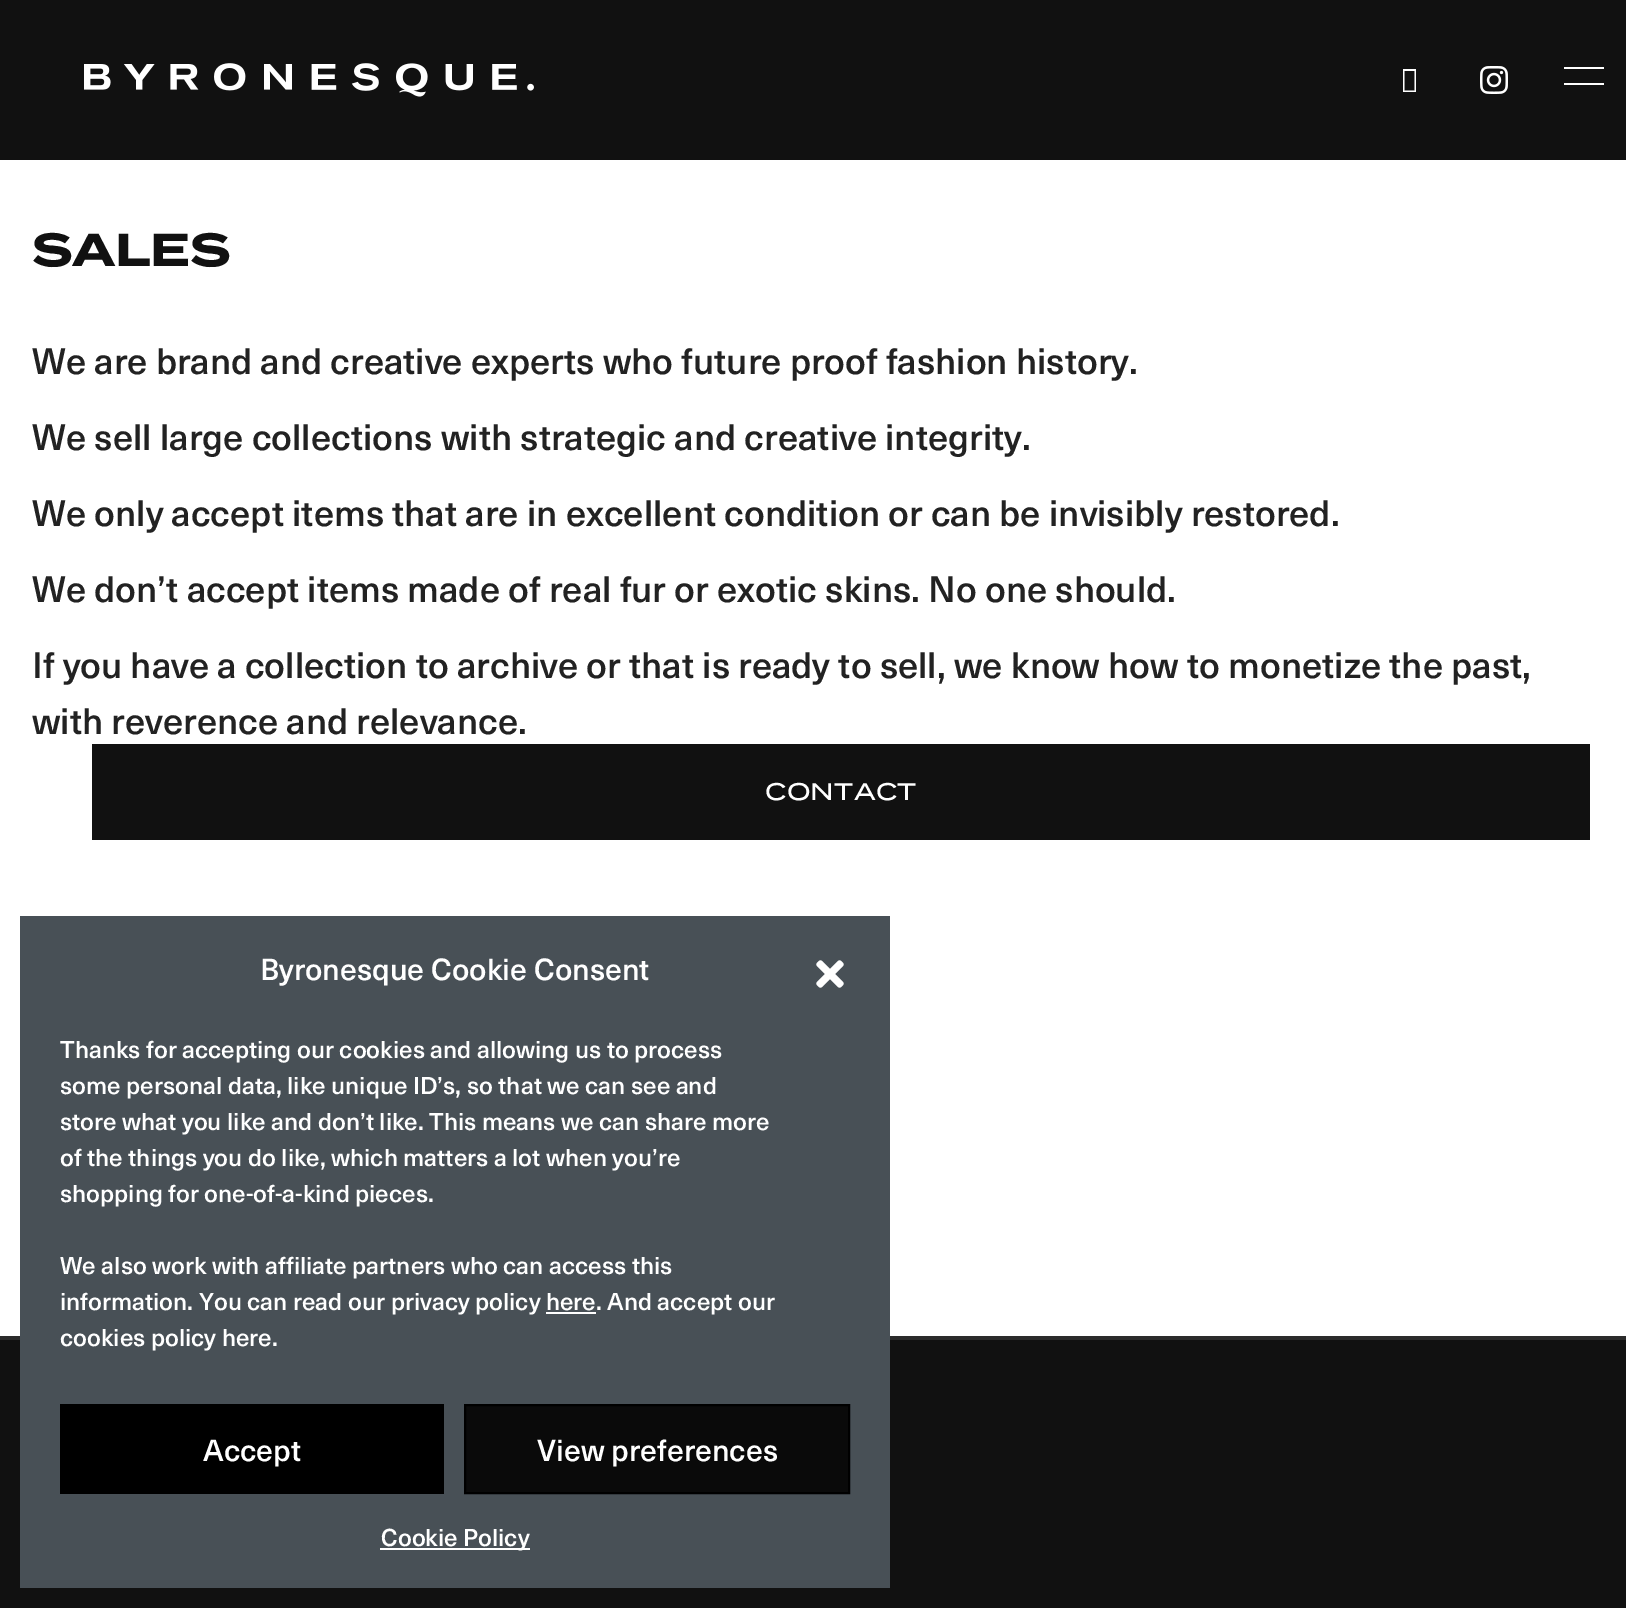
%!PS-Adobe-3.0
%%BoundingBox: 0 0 1626 1608
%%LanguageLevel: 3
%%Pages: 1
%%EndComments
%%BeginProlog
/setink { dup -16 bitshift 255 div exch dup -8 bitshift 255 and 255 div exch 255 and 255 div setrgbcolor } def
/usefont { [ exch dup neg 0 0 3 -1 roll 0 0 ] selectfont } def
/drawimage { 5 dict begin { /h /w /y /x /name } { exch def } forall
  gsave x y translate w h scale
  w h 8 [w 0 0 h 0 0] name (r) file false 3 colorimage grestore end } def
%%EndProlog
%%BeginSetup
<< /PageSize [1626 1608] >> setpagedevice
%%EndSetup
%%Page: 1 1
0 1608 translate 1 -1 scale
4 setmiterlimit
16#FFFFFF setink
0 0 1626 1608 rectfill
16#111111 setink
0 0 1626 160 rectfill
(img1.raw) 84 63 450 34 drawimage
16#FFFFFF setink
1403 92 moveto 1403 69 lineto 1416 69 lineto 1416 92 lineto closepath 1404.5 90.5 moveto 1414.5 90.5 lineto 1414.5 71 lineto 1404.5 71 lineto closepath fill
(img2.raw) 1480 66 28 28 drawimage
1564 67 40 2 rectfill
1564 83 40 2 rectfill
/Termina-Bold 46 usefont
16#111111 setink
32 266 moveto -0.5 0 (SALES) ashow
/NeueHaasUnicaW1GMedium-Medium 36 usefont
16#222222 setink
[
    [(We are brand and creative experts who future proof fashion history.) 32 374]
    [(We sell large collections with strategic and creative integrity.) 32 450]
    [(We only accept items that are in excellent condition or can be invisibly restored.) 32 526]
    [(We don’t accept items made of real fur or exotic skins. No one should.) 32 602]
    [(If you have a collection to archive or that is ready to sell, we know how to monetize the past,) 32 678]
    [(with reverence and relevance.) 32 734]
] { aload pop moveto show } forall
16#111111 setink
92 744 1498 96 rectfill
/Termina-Medium 24 usefont
16#FFFFFF setink
765 800 moveto 0.25 0 (CONTACT) ashow
[
    [0 1340 1626 268 16#111111]
    [0 1336 1626 4 16#2B2B2B]
    [20 916 870 672 16#485056]
] { aload pop setink rectfill } forall
/NeueHaasUnicaW1GMedium-Medium 30 usefont
16#FFFFFF setink
260 980 moveto (Byronesque Cookie Consent) show
(img3.raw) 816 960 28 28 drawimage
/NeueHaasUnicaW1GMedium-Medium 24 usefont
[
    [(Thanks for accepting our cookies and allowing us to process) 60 1058]
    [(some personal data, like unique ID’s, so that we can see and) 60 1094]
    [(store what you like and don’t like. This means we can share more) 60 1130]
    [(of the things you do like, which matters a lot when you’re) 60 1166]
    [(shopping for one-of-a-kind pieces.) 60 1202]
    [(We also work with affiliate partners who can access this) 60 1274]
    [(information. You can read our privacy policy here. And accept our) 60 1310]
] { aload pop moveto show } forall
546 1312 50 2 rectfill
60 1346 moveto (cookies policy here.) show
16#000000 setink
60 1404 384 90 rectfill
/NeueHaasUnicaW1GMedium-Medium 30 usefont
16#FFFFFF setink
203 1461 moveto (Accept) show
16#0A0A0A setink
465 1405 moveto 849 1405 lineto 849 1493 lineto 465 1493 lineto closepath gsave fill grestore
16#000000 setink
2 setlinewidth
stroke
16#FFFFFF setink
537 1461 moveto (View preferences) show
380 1548 150 2 rectfill
/NeueHaasUnicaW1GMedium-Medium 24 usefont
381 1546 moveto (Cookie Policy) show
showpage
%%EOF
